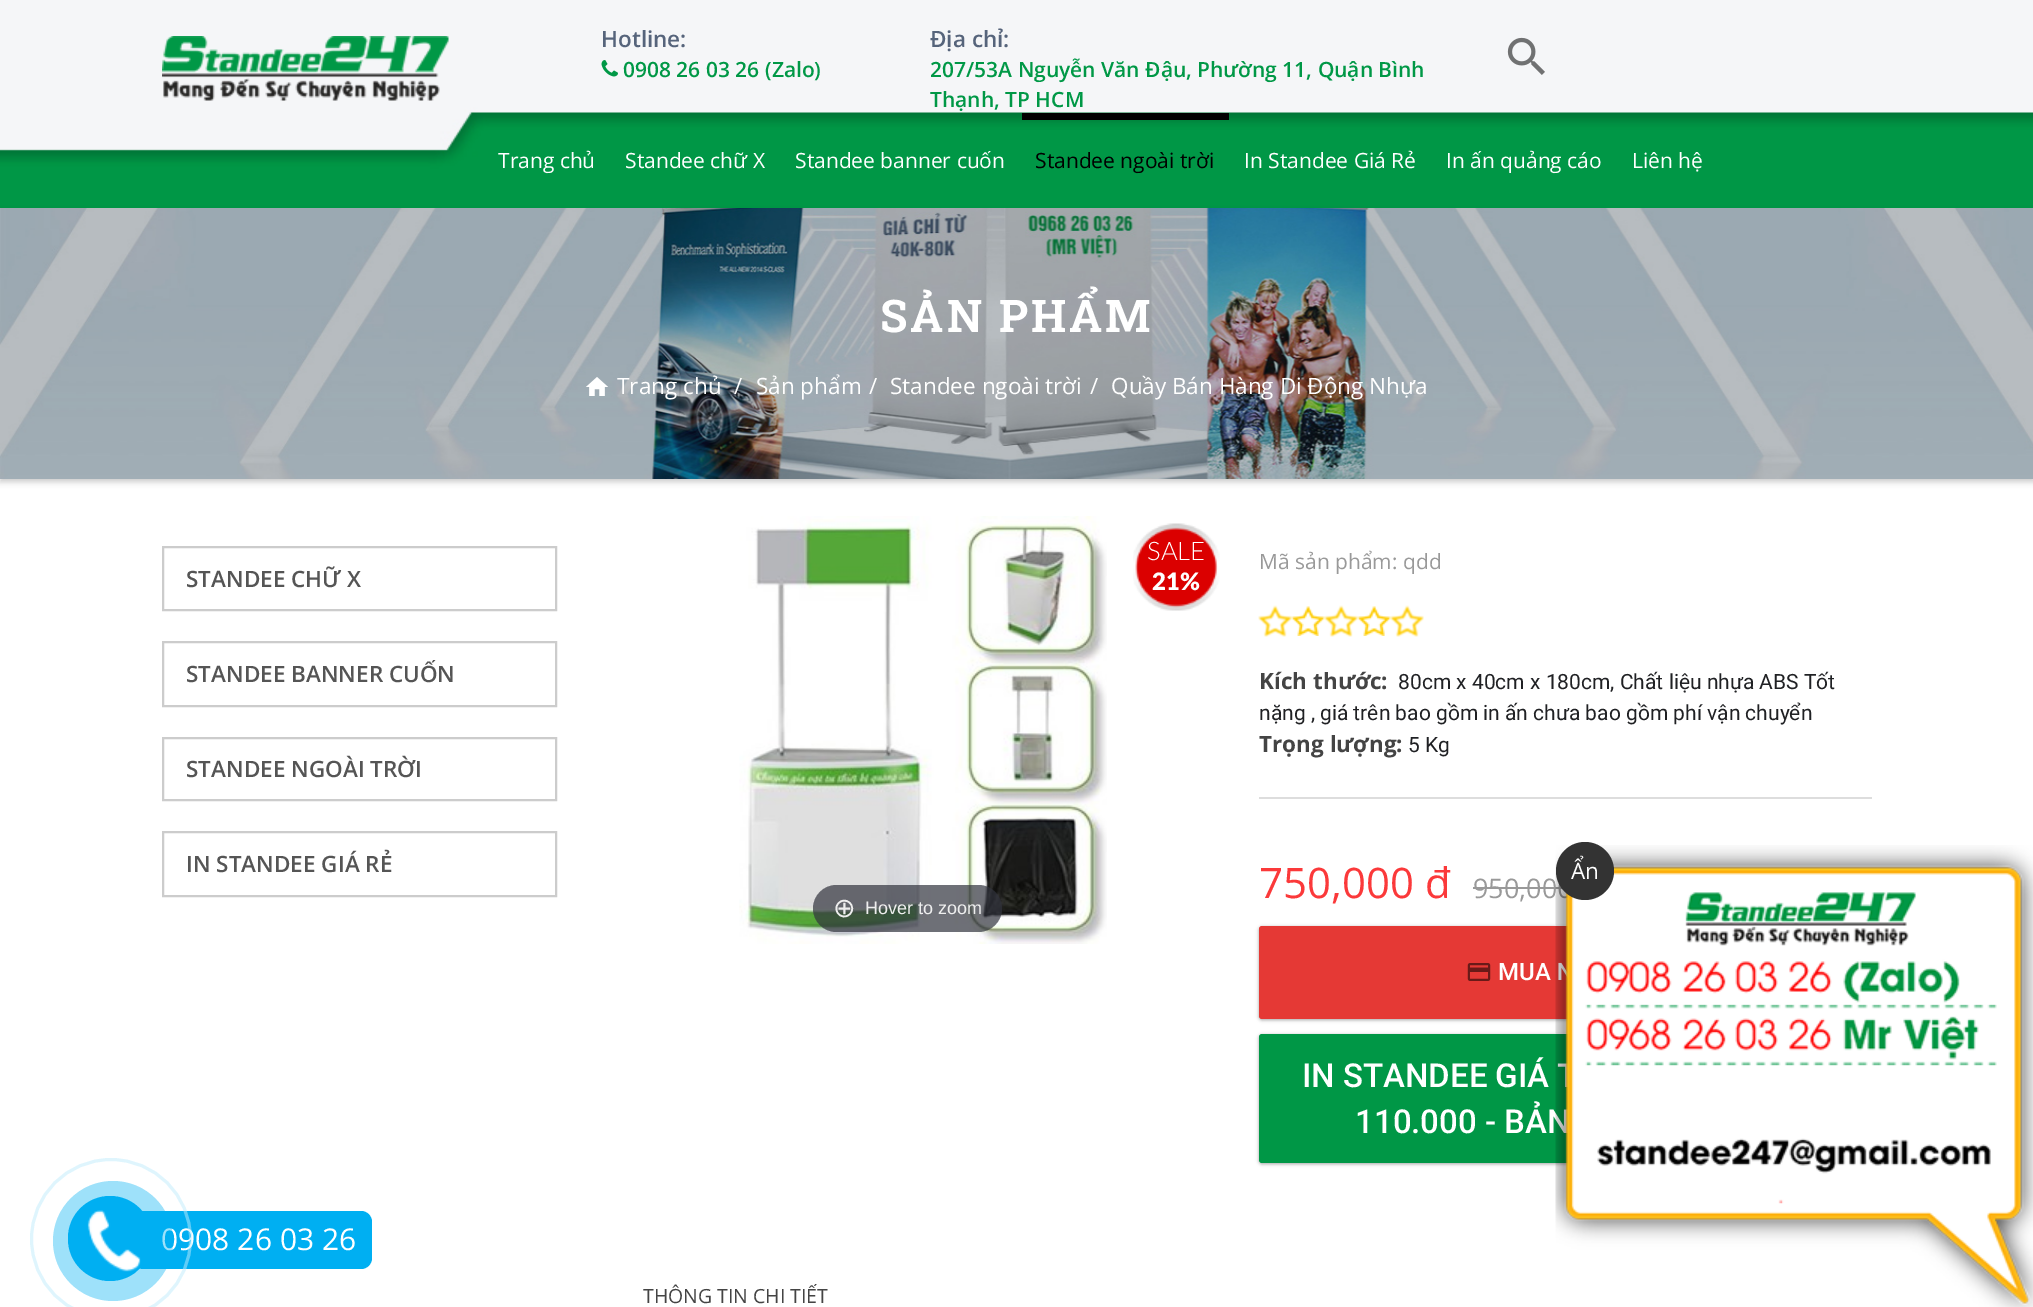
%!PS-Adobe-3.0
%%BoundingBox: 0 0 2033 1307
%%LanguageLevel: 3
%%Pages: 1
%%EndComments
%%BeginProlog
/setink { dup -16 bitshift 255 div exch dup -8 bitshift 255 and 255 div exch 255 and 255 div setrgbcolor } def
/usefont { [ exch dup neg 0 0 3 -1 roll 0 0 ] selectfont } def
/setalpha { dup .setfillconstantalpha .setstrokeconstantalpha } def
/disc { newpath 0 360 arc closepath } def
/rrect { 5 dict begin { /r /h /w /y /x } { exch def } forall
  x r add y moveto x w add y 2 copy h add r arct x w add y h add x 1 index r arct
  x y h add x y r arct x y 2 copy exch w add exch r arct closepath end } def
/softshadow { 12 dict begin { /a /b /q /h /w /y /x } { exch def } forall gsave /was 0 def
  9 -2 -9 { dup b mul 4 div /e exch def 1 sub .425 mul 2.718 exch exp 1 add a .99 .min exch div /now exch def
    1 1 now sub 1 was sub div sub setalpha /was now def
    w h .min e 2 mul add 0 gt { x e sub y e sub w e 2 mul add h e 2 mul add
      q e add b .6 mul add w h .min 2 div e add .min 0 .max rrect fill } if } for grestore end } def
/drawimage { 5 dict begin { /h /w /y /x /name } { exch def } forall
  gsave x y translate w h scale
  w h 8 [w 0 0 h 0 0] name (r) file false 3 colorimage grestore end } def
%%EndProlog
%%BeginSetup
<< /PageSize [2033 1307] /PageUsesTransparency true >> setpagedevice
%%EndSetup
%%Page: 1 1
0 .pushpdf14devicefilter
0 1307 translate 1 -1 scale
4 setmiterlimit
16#FFFFFF setink
0 0 2033 1307 rectfill
(img1.raw) 0 0 2033 208 drawimage
(img2.raw) 162 36 287 65 drawimage
/OpenSans-SemiBold 22.5 usefont
16#56647B setink
601 47 moveto (Hotline:) show
(img3.raw) 601 60 17 17 drawimage
/OpenSans-SemiBold 21 usefont
16#009846 setink
623 77 moveto (0908 26 03 26 \(Zalo\)) show
/OpenSans-SemiBold 22.5 usefont
16#56647B setink
930 47 moveto (Địa chỉ:) show
/OpenSans-SemiBold 21 usefont
16#009846 setink
930 77 moveto (207/53A Nguyễn Văn Đậu, Phường 11, Quận Bình) show
930 107 moveto (Thạnh, TP HCM) show
(img4.raw) 1507 37 38 38 drawimage
/OpenSans-Regular 21 usefont
16#FFFFFF setink
[
    [(Trang chủ) 498 168]
    [(Standee chữ X) 625 168]
    [(Standee banner cuốn) 795 168]
] { aload pop moveto show } forall
16#000000 setink
1022 113 207 7 rectfill
1035 168 moveto (Standee ngoài trời) show
16#FFFFFF setink
[
    [(In Standee Giá Rẻ) 1244 168]
    [(In ấn quảng cáo) 1446 168]
    [(Liên hệ) 1632 168]
] { aload pop moveto show } forall
16#000000 setink
0 212 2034 270 0 3 0.2 softshadow
(img5.raw) 0 208 2033 271 drawimage
/RobotoSlab-Bold 45 usefont
16#FFFFFF setink
880 332 moveto 3 0 (SẢN PHẨM) ashow
(img6.raw) 586 377 22 19 drawimage
/OpenSans-Regular 22.5 usefont
[
    [(Trang chủ) 617 394]
    [(/) 734 394]
    [(Sản phẩm) 756 394]
    [(/) 869 394]
    [(Standee ngoài trời) 890 394]
    [(/) 1090 394]
    [(Quầy Bán Hàng Di Động Nhựa) 1111 394]
] { aload pop moveto show } forall
16#CCCCCC setink
2 setlinewidth
163 547 393 63 rectstroke
/OpenSans-SemiBold 22.5 usefont
16#555555 setink
186 587 moveto (STANDEE CHỮ X) show
16#CCCCCC setink
163 642 393 64 rectstroke
16#555555 setink
186 682 moveto (STANDEE BANNER CUỐN) show
16#CCCCCC setink
163 738 393 62 rectstroke
16#555555 setink
186 777 moveto (STANDEE NGOÀI TRỜI) show
16#CCCCCC setink
163 832 393 64 rectstroke
16#555555 setink
186 872 moveto (IN STANDEE GIÁ RẺ) show
(img7.raw) 1133 523 87 88 drawimage
/Lato-Light 25.5 usefont
16#FFFFFF setink
1147 560 moveto (SALE) show
/Lato-Black 24 usefont
1152 590 moveto (21%) show
(img8.raw) 739 516 368 428 drawimage
0.7 setalpha
16#31333D setink
813 885 189 47 23.5 rrect fill
/DejaVuSans-Regular 27 usefont
1 setalpha
16#EEEEEE setink
833 917 moveto (⊕) show
/LiberationSans-Regular 18 usefont
865 914 moveto (Hover to zoom) show
/OpenSans-Regular 21 usefont
16#999999 setink
1259 569 moveto (Mã sản phẩm: qdd) show
(img9.raw) 1258 605 34 32 drawimage
(img10.raw) 1291 606 34 30 drawimage
(img11.raw) 1324 605 34 32 drawimage
(img10.raw) 1357 606 34 30 drawimage
(img11.raw) 1390 605 34 32 drawimage
/OpenSans-Bold 22.5 usefont
16#444444 setink
1259 689 moveto (Kích thước:) show
/Roboto-Regular 21 usefont
16#202124 setink
1398 689 moveto (80cm x 40cm x 180cm, Chất liệu nhựa ABS Tốt) show
1259 720 moveto (nặng , giá trên bao gồm in ấn chưa bao gồm phí vận chuyển) show
/OpenSans-Bold 22.5 usefont
16#444444 setink
1259 752 moveto (Trọng lượng:) show
/Roboto-Regular 21 usefont
16#202124 setink
1408 752 moveto (5 Kg) show
16#DDDDDD setink
1259 797 613 2 rectfill
/OpenSans-Regular 42 usefont
16#FB393A setink
1259 898 moveto (750,000 đ) show
/OpenSans-Regular 27 usefont
16#999999 setink
1473 898 moveto (950,000) show
1473 887 90 2 rectfill
16#000000 setink
1259 927 568 93 3 1.5 0.24 softshadow
1259 927 568 93 3 2 0.12 softshadow
16#E53935 setink
1259 926 568 93 3 rrect fill
(img12.raw) 1467 963 24 18 drawimage
/Roboto-Medium 24 usefont
16#FFFFFF setink
1498 980 moveto (MUA N) show
16#000000 setink
1259 1035 568 129 3 1.5 0.24 softshadow
1259 1035 568 129 3 2 0.12 softshadow
16#009746 setink
1259 1034 568 129 3 rrect fill
/Roboto-Medium 33 usefont
16#FFFFFF setink
1302 1087 moveto (IN STANDEE GIÁ) show
1355 1133 moveto (110.000 - BẢN) show
/OpenSans-Regular 19.5 usefont
16#444444 setink
643 1303 moveto (THÔNG TIN CHI TIẾT) show
(img13.raw) 1555 845 478 462 drawimage
16#333333 setink
1585 871 29 disc fill
/OpenSans-Regular 22.5 usefont
16#FFFFFF setink
1571 879 moveto (Ẩn) show
16#00AFF2 setink
132 1211 240 58 11 rrect fill
/OpenSans-Regular 30 usefont
16#FFFFFF setink
161 1250 moveto (0908 26 03 26) show
0.5 setalpha
16#BFEBFC setink
3 setlinewidth
111 1239 79.5 disc stroke
0.38 setalpha
16#00AFF2 setink
113 1241 60 disc fill
1 setalpha
68 1196 84 85 42 rrect fill
(img14.raw) 87 1210 54 62 drawimage
.poppdf14devicefilter showpage
%%EOF
